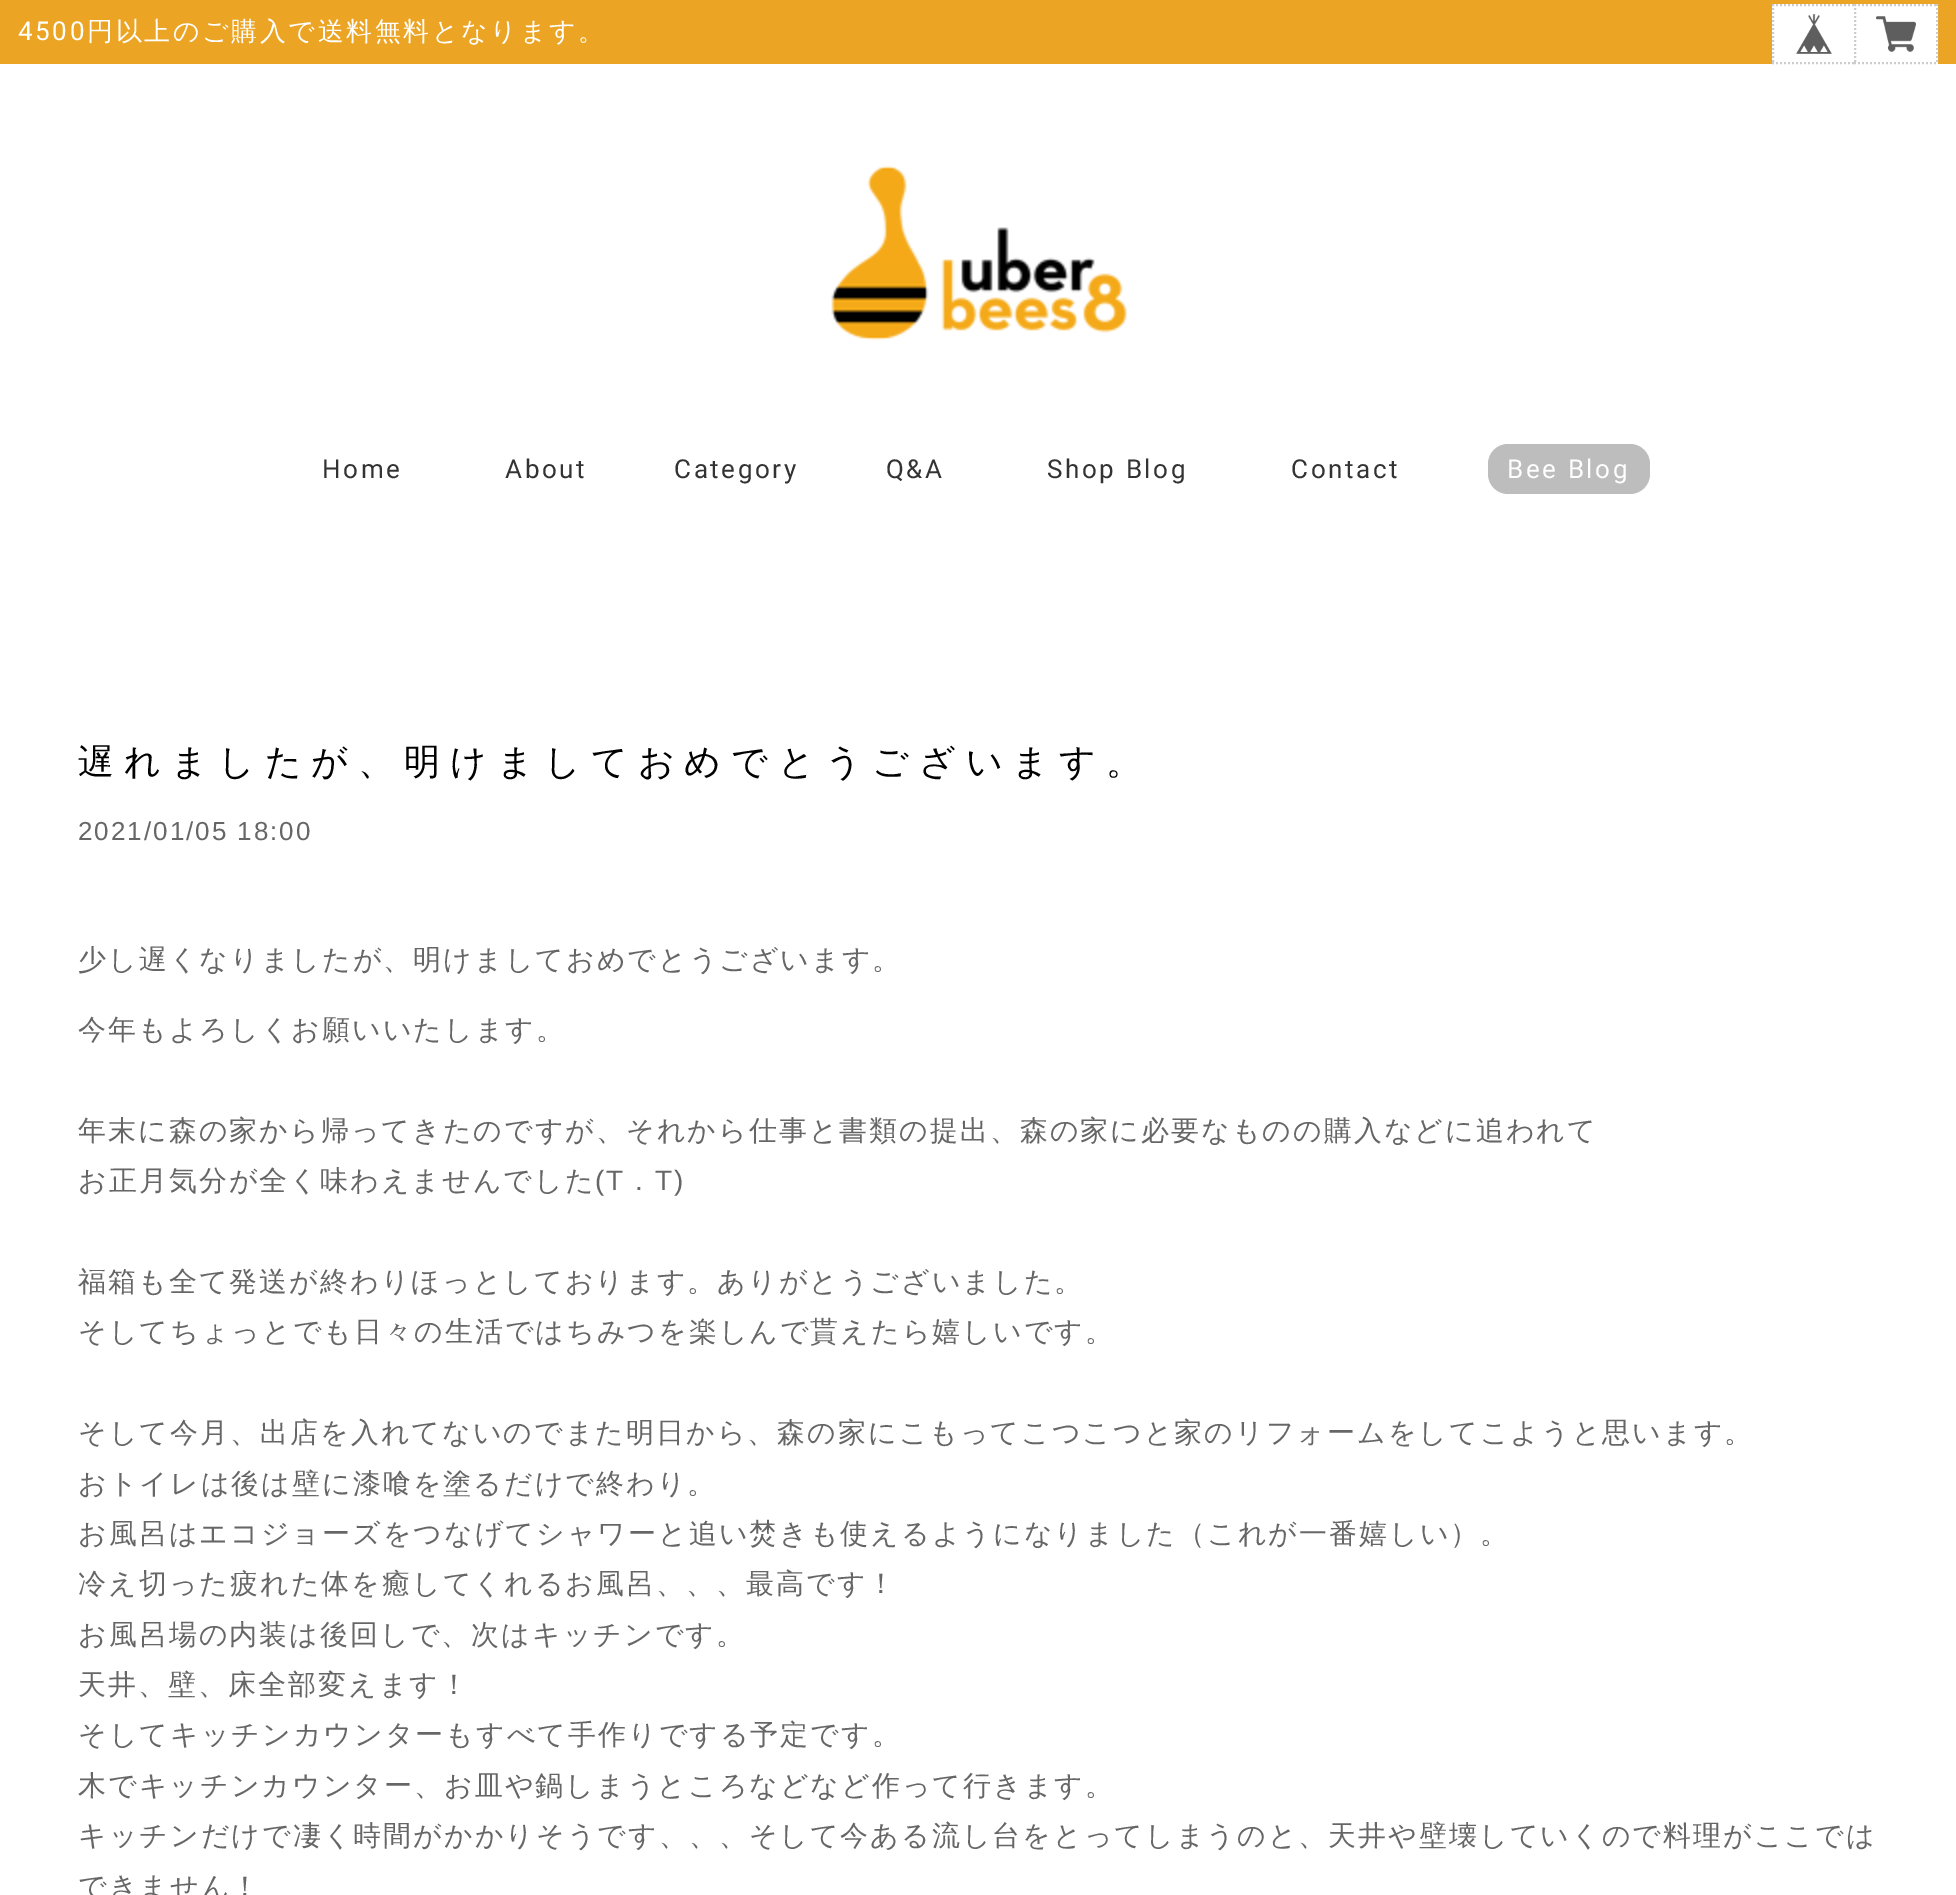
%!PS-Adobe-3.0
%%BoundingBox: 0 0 1956 1895
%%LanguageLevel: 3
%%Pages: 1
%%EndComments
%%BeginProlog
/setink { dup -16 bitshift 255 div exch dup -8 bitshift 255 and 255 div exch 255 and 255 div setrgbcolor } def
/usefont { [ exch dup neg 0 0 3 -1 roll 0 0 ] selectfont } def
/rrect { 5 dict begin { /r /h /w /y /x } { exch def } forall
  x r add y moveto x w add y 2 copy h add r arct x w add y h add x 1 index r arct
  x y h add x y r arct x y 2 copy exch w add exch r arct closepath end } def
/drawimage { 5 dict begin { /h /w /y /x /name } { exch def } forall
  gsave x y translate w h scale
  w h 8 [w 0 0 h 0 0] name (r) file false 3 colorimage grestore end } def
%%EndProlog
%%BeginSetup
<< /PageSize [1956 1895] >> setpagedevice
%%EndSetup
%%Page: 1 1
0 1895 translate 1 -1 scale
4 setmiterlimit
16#FFFFFF setink
0 0 1956 1895 rectfill
16#EBA423 setink
0 0 1956 64 rectfill
/Roboto-Regular 26 usefont
16#FFFFFF setink
18 40 moveto 2.6 0 (4500) ashow
/WenQuanYiZenHei-Medium 26 usefont
87 40 moveto 2.6 0 (円以上のご購入で送料無料となります。) ashow
1772 4 166 60 rectfill
16#CCCCCC setink
2 setlinewidth
[2 2] 0 setdash
1772 5 moveto 1854 5 lineto stroke
1772 63 moveto 1854 63 lineto stroke
1773 4 moveto 1773 64 lineto stroke
(img1.raw) 1796 14 36 40 drawimage
1854 5 moveto 1938 5 lineto stroke
1937 4 moveto 1937 64 lineto stroke
1854 63 moveto 1938 63 lineto stroke
1855 4 moveto 1855 64 lineto stroke
(img2.raw) 1876 16 40 36 drawimage
(img3.raw) 831 165 296 176 drawimage
/Roboto-Regular 26 usefont
16#333333 setink
322 478 moveto 2.6 0 (Home) ashow
505 478 moveto 2.6 0 (About) ashow
674 478 moveto 2.6 0 (Category) ashow
886 478 moveto 2.6 0 (Q&A) ashow
1047 478 moveto 2.6 0 (Shop Blog) ashow
1291 478 moveto 2.6 0 (Contact) ashow
16#BDBDBD setink
1488 444 162 50 20 rrect fill
16#FFFFFF setink
1507 478 moveto 2.6 0 (Bee Blog) ashow
/WenQuanYiZenHei-Medium 36 usefont
16#000000 setink
78 774 moveto 10 0 (遅れましたが、明けましておめでとうございます。) ashow
/LiberationSans-Regular 26 usefont
16#666666 setink
78 840 moveto 2 0 (2021/01/05 18:00) ashow
/WenQuanYiZenHei-Medium 28 usefont
78 969 moveto 2 0 (少し遅くなりましたが、明けましておめでとうございます。) ashow
78 1039 moveto 2 0 (今年もよろしくお願いいたします。) ashow
78 1140 moveto 2 0 (年末に森の家から帰ってきたのですが、それから仕事と書類の提出、森の家に必要なものの購入などに追われて) ashow
78 1190 moveto 2 0 (お正月気分が全く味わえませんでした) ashow
/LiberationSans-Regular 28 usefont
595 1190 moveto 2 0 (\(T . T\)) ashow
/WenQuanYiZenHei-Medium 28 usefont
78 1291 moveto 2 0 (福箱も全て発送が終わりほっとしております。ありがとうございました。) ashow
78 1341 moveto 2 0 (そしてちょっとでも日々の生活ではちみつを楽しんで貰えたら嬉しいです。) ashow
78 1442 moveto 2 0 (そして今月、出店を入れてないのでまた明日から、森の家にこもってこつこつと家のリフォームをしてこようと思います。) ashow
78 1493 moveto 2 0 (おトイレは後は壁に漆喰を塗るだけで終わり。) ashow
78 1543 moveto 2 0 (お風呂はエコジョーズをつなげてシャワーと追い焚きも使えるようになりました（これが一番嬉しい）。) ashow
78 1593 moveto 2 0 (冷え切った疲れた体を癒してくれるお風呂、、、最高です！) ashow
78 1644 moveto 2 0 (お風呂場の内装は後回しで、次はキッチンです。) ashow
78 1694 moveto 2 0 (天井、壁、床全部変えます！) ashow
78 1744 moveto 2 0 (そしてキッチンカウンターもすべて手作りでする予定です。) ashow
78 1795 moveto 2 0 (木でキッチンカウンター、お皿や鍋しまうところなどなど作って行きます。) ashow
78 1845 moveto 2 0 (キッチンだけで凄く時間がかかりそうです、、、そして今ある流し台をとってしまうのと、天井や壁壊していくので料理がここでは) ashow
78 1896 moveto 2 0 (できません！) ashow
showpage
%%EOF
